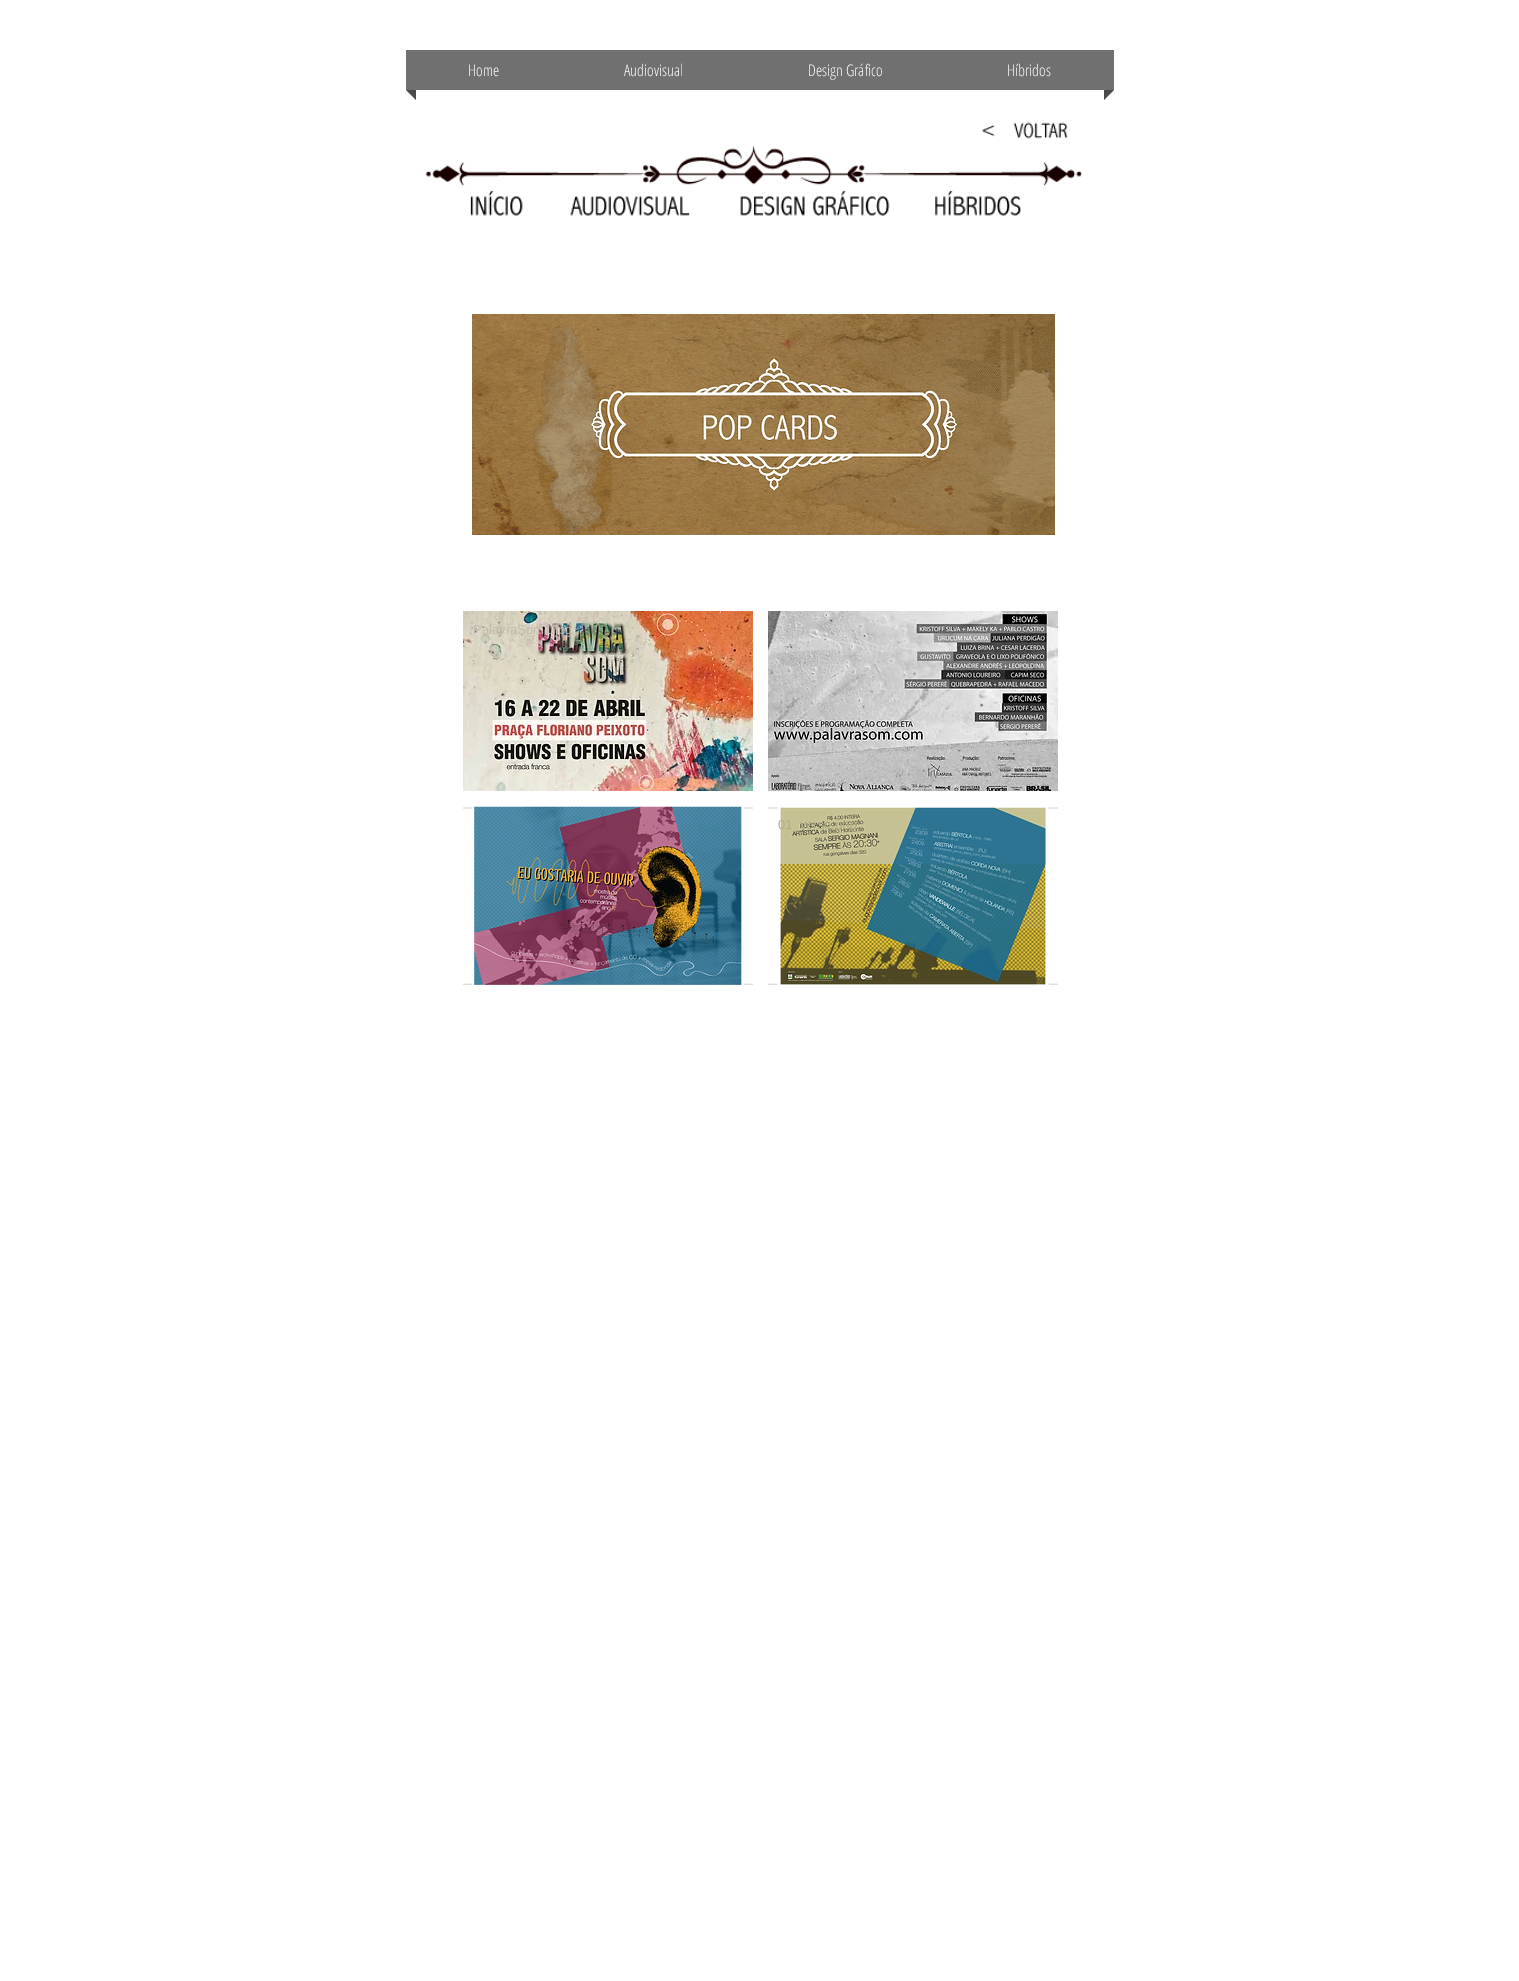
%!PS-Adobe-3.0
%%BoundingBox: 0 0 1519 1981
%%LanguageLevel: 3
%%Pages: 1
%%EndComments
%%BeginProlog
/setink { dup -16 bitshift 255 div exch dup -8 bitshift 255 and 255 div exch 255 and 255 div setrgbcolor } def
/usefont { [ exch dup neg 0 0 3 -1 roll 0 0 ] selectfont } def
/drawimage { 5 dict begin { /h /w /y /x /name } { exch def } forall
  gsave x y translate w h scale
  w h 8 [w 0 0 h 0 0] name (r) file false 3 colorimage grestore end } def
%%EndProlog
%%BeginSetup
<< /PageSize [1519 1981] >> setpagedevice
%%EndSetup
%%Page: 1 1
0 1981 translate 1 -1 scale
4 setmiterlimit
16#FFFFFF setink
0 0 1519 1981 rectfill
16#717070 setink
406 50 708 40 rectfill
/OpenSansCondensed-Light 16 usefont
16#FFFFFF setink
[
    [(Home) 468 76]
    [(Audiovisual) 624 76]
    [(Design Gráfico) 808 76]
    [(Híbridos) 1007 76]
] { aload pop moveto show } forall
16#4A4A4A setink
406 90 moveto 416 90 lineto 416 100 lineto closepath fill
1104 90 moveto 1114 90 lineto 1104 100 lineto closepath fill
(img1.raw) 426 122 656 94 drawimage
(img2.raw) 472 314 583 221 drawimage
(img3.raw) 463 611 290 180 drawimage
/LiberationSans-Regular 13 usefont
16#C1BAAE setink
473 634 moveto (PalavraSom1.jpg) show
(img4.raw) 768 611 290 180 drawimage
(img5.raw) 463 806 290 179 drawimage
(img6.raw) 768 807 290 178 drawimage
16#B1AE88 setink
778 829 moveto (01_verso.png) show
showpage
%%EOF
